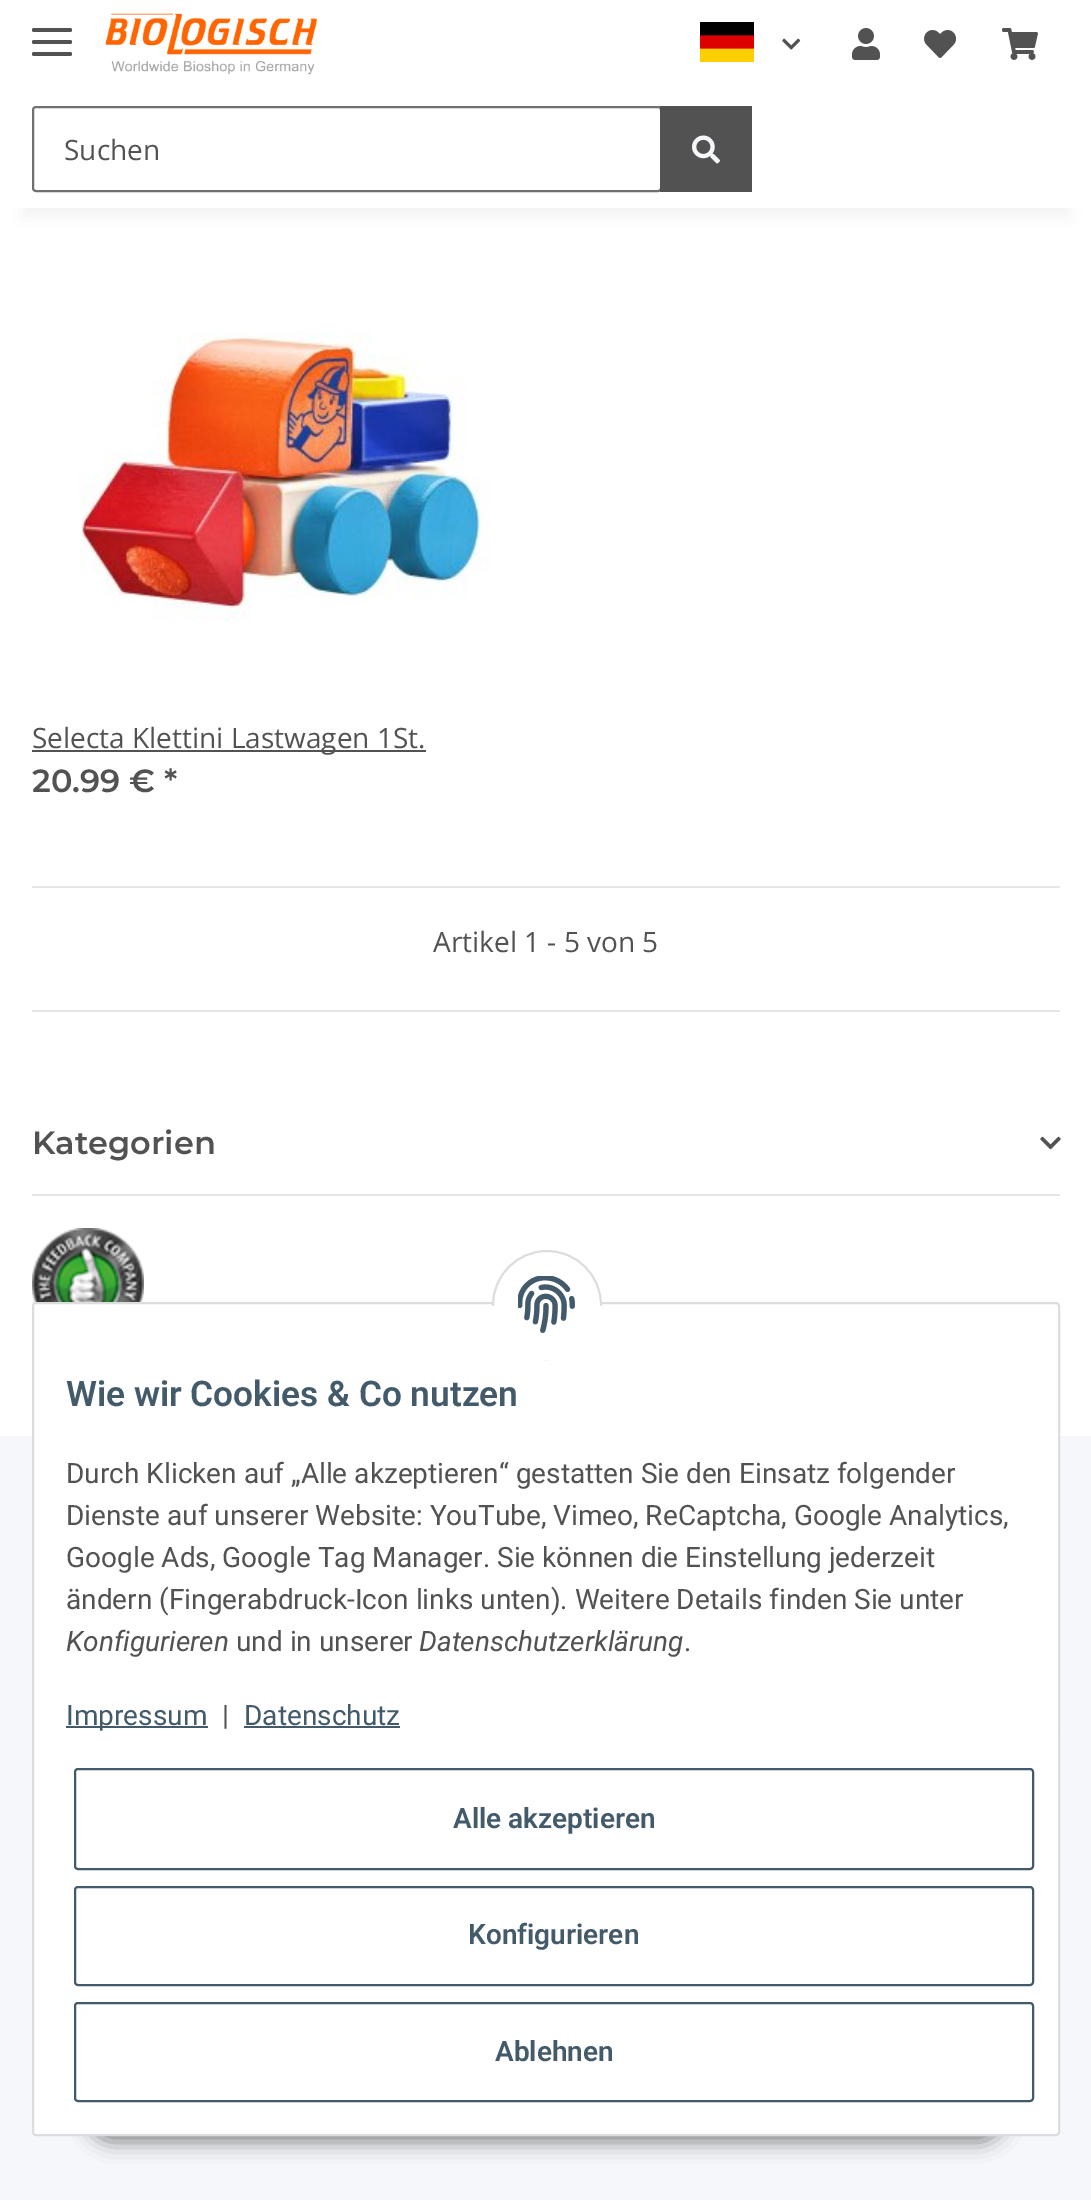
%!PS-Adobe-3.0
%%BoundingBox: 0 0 1091 2200
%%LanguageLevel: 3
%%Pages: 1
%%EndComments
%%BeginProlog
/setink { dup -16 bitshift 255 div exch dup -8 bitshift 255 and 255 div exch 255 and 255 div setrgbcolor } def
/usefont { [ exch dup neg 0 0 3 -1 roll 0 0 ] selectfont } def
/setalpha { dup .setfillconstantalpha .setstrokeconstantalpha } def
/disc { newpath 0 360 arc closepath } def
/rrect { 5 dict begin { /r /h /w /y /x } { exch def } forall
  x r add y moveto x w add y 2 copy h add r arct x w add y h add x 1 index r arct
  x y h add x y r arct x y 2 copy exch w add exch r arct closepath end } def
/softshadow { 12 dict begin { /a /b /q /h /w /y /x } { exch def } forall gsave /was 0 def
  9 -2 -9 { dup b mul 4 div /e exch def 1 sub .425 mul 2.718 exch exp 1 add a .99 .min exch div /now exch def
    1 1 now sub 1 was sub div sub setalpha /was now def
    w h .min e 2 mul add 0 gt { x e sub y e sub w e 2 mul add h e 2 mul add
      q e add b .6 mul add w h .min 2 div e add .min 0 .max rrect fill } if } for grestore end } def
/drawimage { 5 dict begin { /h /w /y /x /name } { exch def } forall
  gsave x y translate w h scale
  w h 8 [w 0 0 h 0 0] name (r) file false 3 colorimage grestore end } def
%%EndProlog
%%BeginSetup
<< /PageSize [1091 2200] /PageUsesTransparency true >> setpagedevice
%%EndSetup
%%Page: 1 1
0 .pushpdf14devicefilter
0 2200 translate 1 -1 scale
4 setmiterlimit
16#F5F7FA setink
0 0 1091 2200 rectfill
16#FFFFFF setink
0 208 1091 1228 rectfill
16#000000 setink
24 56 1044 160 0 9 0.06 softshadow
16#FFFFFF setink
0 0 1091 208 rectfill
16#525252 setink
32 40 40 4 2 rrect fill
32 28 40 4 2 rrect fill
32 52 40 4 2 rrect fill
(img1.raw) 105 13 212 62 drawimage
(img2.raw) 700 22 54 40 drawimage
(img3.raw) 782 38 19 12 drawimage
(img4.raw) 852 28 28 32 drawimage
(img5.raw) 924 30 33 28 drawimage
(img6.raw) 1002 28 36 32 drawimage
16#707070 setink
2 setlinewidth
33 107 628 84 3 rrect stroke
/OpenSans-Regular 28 usefont
16#525252 setink
64 160 moveto (Suchen) show
660 106 92 86 rectfill
(img7.raw) 692 135 28 29 drawimage
(img8.raw) 80 331 411 291 drawimage
32 750 394 2 rectfill
32 748 moveto (Selecta Klettini Lastwagen 1St.) show
/Montserrat-SemiBold 32 usefont
32 792 moveto (20.99 € *) show
16#E6E6E6 setink
32 886 1028 2 rectfill
/OpenSans-Regular 28 usefont
16#525252 setink
433 952 moveto (Artikel 1 - 5 von 5) show
16#E6E6E6 setink
32 1010 1028 2 rectfill
/Montserrat-SemiBold 32 usefont
16#525252 setink
32 1154 moveto (Kategorien) show
(img9.raw) 1040 1136 21 14 drawimage
16#E6E6E6 setink
32 1194 1028 2 rectfill
(img10.raw) 32 1228 112 76 drawimage
16#000000 setink
86 2078 920 64 32 10 0.45 softshadow
16#FFFFFF setink
33 1303 1026 832 3 rrect gsave fill grestore
16#DDDDDD setink
stroke
16#FFFFFF setink
547 1305 54 disc gsave fill grestore
16#DDDDDD setink
stroke
16#FFFFFF setink
492 1306 110 54 rectfill
(img11.raw) 518 1276 57 57 drawimage
/Roboto-SemiBold 35.25 usefont
16#435A6B setink
66 1406 moveto (Wie wir Cookies & Co nutzen) show
/Roboto-Regular 28 usefont
16#525252 setink
[
    [(Durch Klicken auf „Alle akzeptieren“ gestatten Sie den Einsatz folgender) 66 1483]
    [(Dienste auf unserer Website: YouTube, Vimeo, ReCaptcha, Google Analytics,) 66 1525]
    [(Google Ads, Google Tag Manager. Sie können die Einstellung jederzeit) 66 1567]
    [(ändern \(Fingerabdruck-Icon links unten\). Weitere Details finden Sie unter) 66 1609]
] { aload pop moveto show } forall
/Roboto-Italic 28 usefont
66 1651 moveto (Konfigurieren) show
/Roboto-Regular 28 usefont
236 1651 moveto (und in unserer) show
/Roboto-Italic 28 usefont
419 1651 moveto (Datenschutzerklärung) show
/Roboto-Regular 28 usefont
684 1651 moveto (.) show
16#435A6B setink
66 1726 142 2 rectfill
66 1725 moveto (Impressum) show
16#525252 setink
222 1725 moveto (|) show
16#435A6B setink
244 1725 moveto (Datenschutz) show
244 1726 156 2 rectfill
75 1769 958 100 3 rrect stroke
/Roboto-SemiBold 28 usefont
453 1828 moveto (Alle akzeptieren) show
75 1887 958 98 3 rrect stroke
468 1944 moveto (Konfigurieren) show
75 2003 958 98 3 rrect stroke
495 2061 moveto (Ablehnen) show
(img12.raw) 1060 1732 1 1 drawimage
.poppdf14devicefilter showpage
%%EOF
